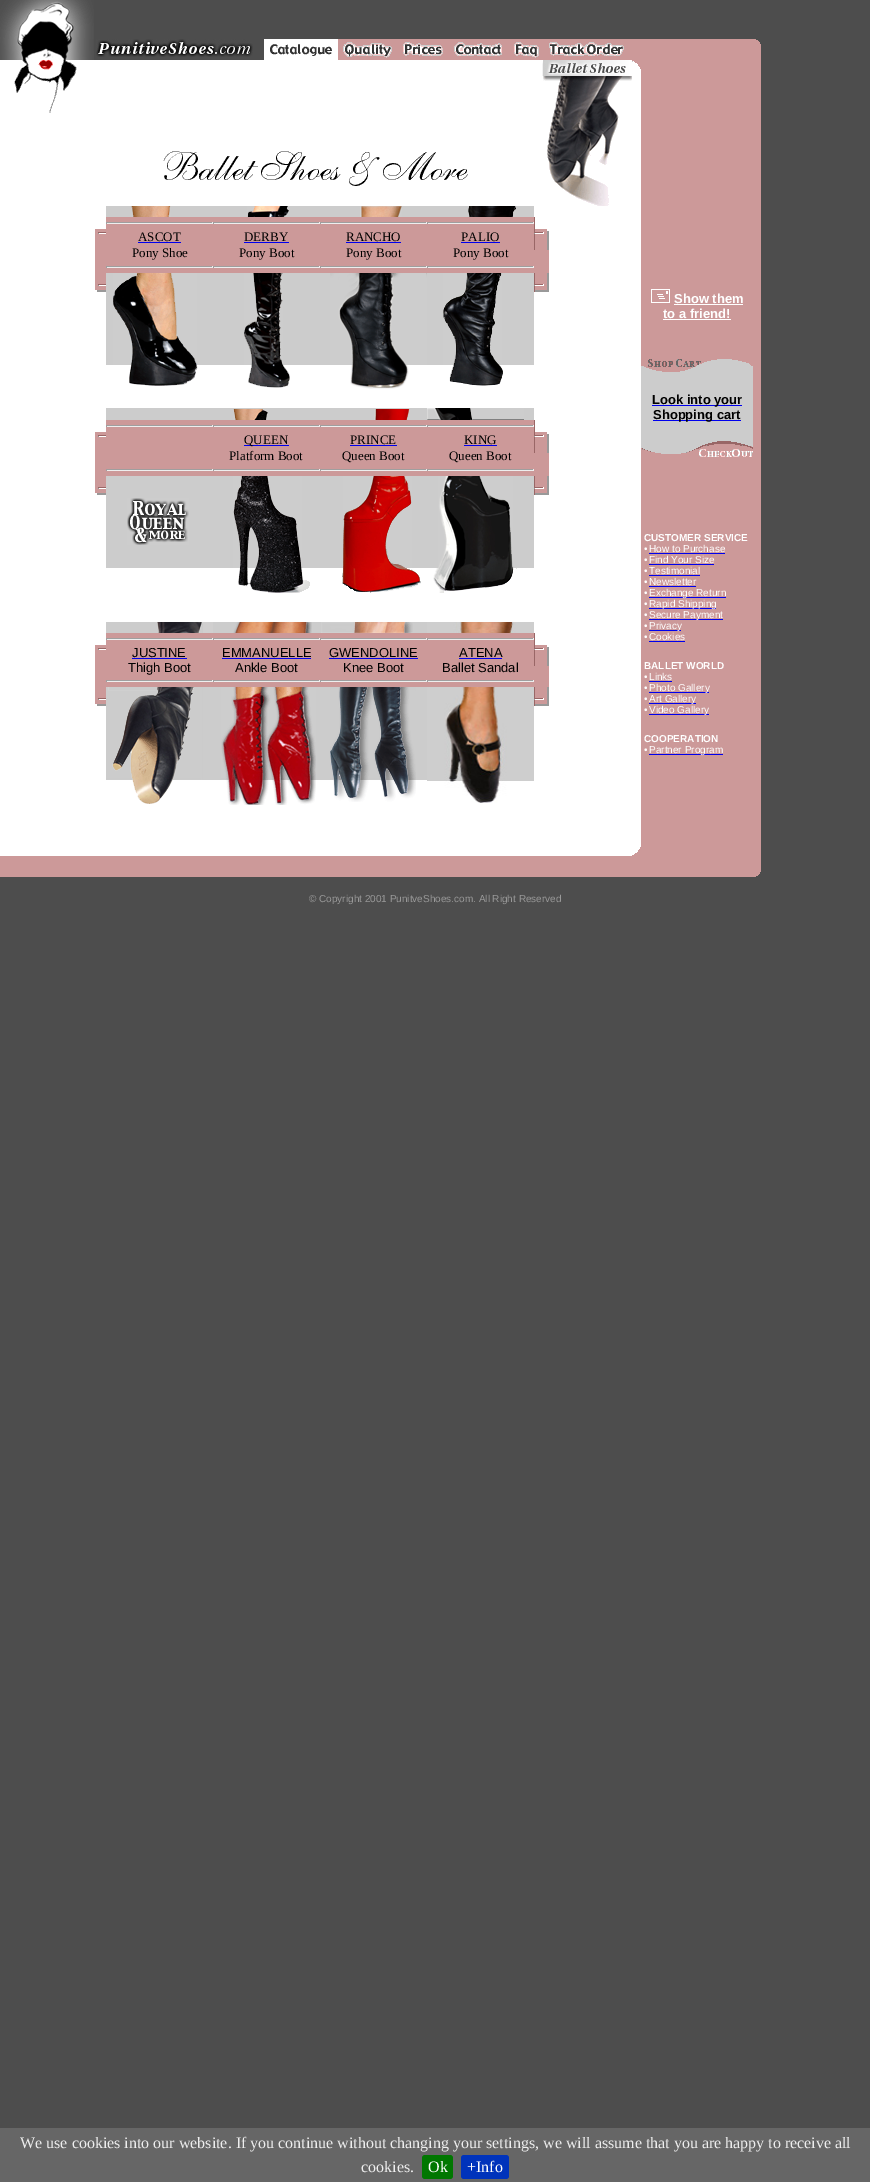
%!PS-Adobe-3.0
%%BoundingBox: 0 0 870 2182
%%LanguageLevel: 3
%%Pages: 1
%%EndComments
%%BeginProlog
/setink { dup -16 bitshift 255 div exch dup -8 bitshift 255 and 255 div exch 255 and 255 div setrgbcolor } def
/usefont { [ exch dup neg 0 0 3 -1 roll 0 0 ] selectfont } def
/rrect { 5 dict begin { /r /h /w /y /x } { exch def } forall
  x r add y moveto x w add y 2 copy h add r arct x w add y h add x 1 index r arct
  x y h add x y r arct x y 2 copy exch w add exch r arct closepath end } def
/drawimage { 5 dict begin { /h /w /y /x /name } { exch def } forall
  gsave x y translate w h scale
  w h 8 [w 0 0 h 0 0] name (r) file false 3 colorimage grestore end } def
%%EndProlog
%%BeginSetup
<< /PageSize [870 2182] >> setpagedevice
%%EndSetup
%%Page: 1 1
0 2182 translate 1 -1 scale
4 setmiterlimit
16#4D4D4D setink
0 0 870 2182 rectfill
(img1.raw) 0 0 94 39 drawimage
(img2.raw) 0 39 94 21 drawimage
(img3.raw) 96 39 157 18 drawimage
(img4.raw) 264 39 74 21 drawimage
(img5.raw) 338 39 61 21 drawimage
(img6.raw) 399 39 51 21 drawimage
(img7.raw) 450 39 59 21 drawimage
(img8.raw) 509 39 33 21 drawimage
(img9.raw) 542 39 90 21 drawimage
16#CC9999 setink
632 39 9 21 rectfill
(img10.raw) 641 39 120 21 drawimage
(img11.raw) 0 60 95 16 drawimage
16#FFFFFF setink
95 60 447 16 rectfill
(img12.raw) 542 60 90 16 drawimage
(img13.raw) 632 60 9 16 drawimage
16#CC9999 setink
641 60 120 796 rectfill
16#FFFFFF setink
0 76 641 780 rectfill
(img14.raw) 14 76 60 37 drawimage
(img15.raw) 543 76 89 41 drawimage
(img16.raw) 163 151 305 35 drawimage
(img17.raw) 547 117 72 89 drawimage
16#CCCCCC setink
106 206 428 11 rectfill
(img18.raw) 131 206 40 11 drawimage
(img19.raw) 247 206 42 11 drawimage
(img20.raw) 360 206 42 11 drawimage
(img21.raw) 468 206 48 11 drawimage
16#CC9999 setink
95 234 11 39 rectfill
(img22.raw) 95 217 11 17 drawimage
[
    [106 217 428 56 16#CC9999]
    [106 222 428 1 16#9F9F9F]
    [212 222 1 2 16#EEEEEE]
    [106 223 107 1 16#EEEEEE]
    [106 222 1 2 16#9F9F9F]
] { aload pop setink rectfill } forall
/LiberationSerif-Regular 13 usefont
16#000000 setink
138 241 moveto (ASCOT) show
16#0000EE setink
138 242 43 1 rectfill
16#000000 setink
132 257 moveto (Pony Shoe) show
[
    [106 266 428 1 16#9F9F9F]
    [212 266 1 2 16#EEEEEE]
    [106 267 107 1 16#EEEEEE]
    [106 266 1 2 16#9F9F9F]
    [319 222 1 2 16#EEEEEE]
    [213 223 107 1 16#EEEEEE]
    [213 222 1 2 16#9F9F9F]
] { aload pop setink rectfill } forall
16#000000 setink
244 241 moveto (DERBY) show
16#0000EE setink
244 242 45 1 rectfill
16#000000 setink
239 257 moveto (Pony Boot) show
[
    [319 266 1 2 16#EEEEEE]
    [213 267 107 1 16#EEEEEE]
    [213 266 1 2 16#9F9F9F]
    [426 222 1 2 16#EEEEEE]
    [320 223 107 1 16#EEEEEE]
    [320 222 1 2 16#9F9F9F]
] { aload pop setink rectfill } forall
16#000000 setink
346 241 moveto (RANCHO) show
16#0000EE setink
346 242 55 1 rectfill
16#000000 setink
346 257 moveto (Pony Boot) show
[
    [426 266 1 2 16#EEEEEE]
    [320 267 107 1 16#EEEEEE]
    [320 266 1 2 16#9F9F9F]
    [533 222 1 2 16#EEEEEE]
    [427 223 107 1 16#EEEEEE]
    [427 222 1 2 16#9F9F9F]
] { aload pop setink rectfill } forall
16#000000 setink
461 241 moveto (PALIO) show
16#0000EE setink
461 242 39 1 rectfill
16#000000 setink
453 257 moveto (Pony Boot) show
[
    [533 266 1 2 16#EEEEEE]
    [427 267 107 1 16#EEEEEE]
    [427 266 1 2 16#9F9F9F]
    [534 250 15 23 16#CC9999]
] { aload pop setink rectfill } forall
(img23.raw) 534 217 15 33 drawimage
(img24.raw) 95 273 11 19 drawimage
16#CCCCCC setink
106 273 224 92 rectfill
(img25.raw) 113 273 84 92 drawimage
(img26.raw) 244 273 39 92 drawimage
(img27.raw) 330 273 97 92 drawimage
427 273 107 92 rectfill
(img28.raw) 443 273 59 92 drawimage
(img29.raw) 534 273 15 19 drawimage
(img30.raw) 129 365 69 21 drawimage
(img31.raw) 248 365 42 23 drawimage
(img32.raw) 350 365 59 24 drawimage
(img33.raw) 449 365 54 21 drawimage
106 408 321 12 rectfill
524 408 10 12 rectfill
(img34.raw) 427 408 97 12 drawimage
(img35.raw) 233 409 35 11 drawimage
(img36.raw) 374 409 36 11 drawimage
16#CC9999 setink
95 437 11 39 rectfill
(img22.raw) 95 420 11 17 drawimage
[
    [106 420 428 56 16#CC9999]
    [106 425 428 1 16#9F9F9F]
    [212 425 1 2 16#EEEEEE]
    [106 426 107 1 16#EEEEEE]
    [106 425 1 2 16#9F9F9F]
    [106 469 428 1 16#9F9F9F]
    [212 469 1 2 16#EEEEEE]
    [106 470 107 1 16#EEEEEE]
    [106 469 1 2 16#9F9F9F]
    [534 453 15 23 16#CC9999]
] { aload pop setink rectfill } forall
(img23.raw) 534 420 15 33 drawimage
[
    [319 425 1 2 16#EEEEEE]
    [213 426 107 1 16#EEEEEE]
    [213 425 1 2 16#9F9F9F]
    [244 445 45 1 16#0000EE]
] { aload pop setink rectfill } forall
16#000000 setink
244 444 moveto (QUEEN) show
229 460 moveto (Platform Boot) show
[
    [319 469 1 2 16#EEEEEE]
    [213 470 107 1 16#EEEEEE]
    [213 469 1 2 16#9F9F9F]
    [426 425 1 2 16#EEEEEE]
    [320 426 107 1 16#EEEEEE]
    [320 425 1 2 16#9F9F9F]
] { aload pop setink rectfill } forall
16#000000 setink
350 444 moveto (PRINCE) show
16#0000EE setink
350 445 47 1 rectfill
16#000000 setink
342 460 moveto (Queen Boot) show
[
    [426 469 1 2 16#EEEEEE]
    [320 470 107 1 16#EEEEEE]
    [320 469 1 2 16#9F9F9F]
    [533 425 1 2 16#EEEEEE]
    [427 426 107 1 16#EEEEEE]
    [427 425 1 2 16#9F9F9F]
] { aload pop setink rectfill } forall
16#000000 setink
464 444 moveto (KING) show
16#0000EE setink
464 445 33 1 rectfill
16#000000 setink
449 460 moveto (Queen Boot) show
[
    [533 469 1 2 16#EEEEEE]
    [427 470 107 1 16#EEEEEE]
    [427 469 1 2 16#9F9F9F]
] { aload pop setink rectfill } forall
(img24.raw) 95 476 11 19 drawimage
16#CCCCCC setink
106 476 428 92 rectfill
(img37.raw) 127 498 62 47 drawimage
(img38.raw) 233 476 69 92 drawimage
(img39.raw) 343 476 69 92 drawimage
(img40.raw) 438 476 75 92 drawimage
(img29.raw) 534 476 15 19 drawimage
(img41.raw) 238 568 72 25 drawimage
(img42.raw) 342 568 79 25 drawimage
(img43.raw) 433 568 84 25 drawimage
(img44.raw) 106 622 107 11 drawimage
213 622 214 11 rectfill
(img45.raw) 233 622 79 11 drawimage
(img46.raw) 321 622 92 11 drawimage
(img47.raw) 427 622 107 11 drawimage
16#CC9999 setink
95 650 11 37 rectfill
(img22.raw) 95 633 11 17 drawimage
[
    [106 633 428 54 16#CC9999]
    [106 638 428 1 16#9F9F9F]
    [212 638 1 2 16#EEEEEE]
    [106 639 107 1 16#EEEEEE]
    [106 638 1 2 16#9F9F9F]
] { aload pop setink rectfill } forall
/LiberationSans-Regular 13 usefont
16#000000 setink
132 657 moveto (JUSTINE) show
16#0000EE setink
132 658 55 1 rectfill
16#000000 setink
128 672 moveto (Thigh Boot) show
[
    [106 680 428 1 16#9F9F9F]
    [212 680 1 2 16#EEEEEE]
    [106 681 107 1 16#EEEEEE]
    [106 680 1 2 16#9F9F9F]
    [319 638 1 2 16#EEEEEE]
    [213 639 107 1 16#EEEEEE]
    [213 638 1 2 16#9F9F9F]
] { aload pop setink rectfill } forall
16#000000 setink
222 657 moveto (EMMANUELLE) show
16#0000EE setink
222 658 89 1 rectfill
16#000000 setink
235 672 moveto (Ankle Boot) show
[
    [319 680 1 2 16#EEEEEE]
    [213 681 107 1 16#EEEEEE]
    [213 680 1 2 16#9F9F9F]
    [426 638 1 2 16#EEEEEE]
    [320 639 107 1 16#EEEEEE]
    [320 638 1 2 16#9F9F9F]
] { aload pop setink rectfill } forall
16#000000 setink
329 657 moveto (GWENDOLINE) show
16#0000EE setink
329 658 89 1 rectfill
16#000000 setink
343 672 moveto (Knee Boot) show
[
    [426 680 1 2 16#EEEEEE]
    [320 681 107 1 16#EEEEEE]
    [320 680 1 2 16#9F9F9F]
    [533 638 1 2 16#EEEEEE]
    [427 639 107 1 16#EEEEEE]
    [427 638 1 2 16#9F9F9F]
] { aload pop setink rectfill } forall
16#000000 setink
459 657 moveto (ATENA) show
16#0000EE setink
459 658 43 1 rectfill
16#000000 setink
442 672 moveto (Ballet Sandal) show
[
    [533 680 1 2 16#EEEEEE]
    [427 681 107 1 16#EEEEEE]
    [427 680 1 2 16#9F9F9F]
    [534 666 15 21 16#CC9999]
] { aload pop setink rectfill } forall
(img23.raw) 534 633 15 33 drawimage
(img24.raw) 95 687 11 19 drawimage
(img48.raw) 106 687 107 93 drawimage
16#CCCCCC setink
213 687 214 93 rectfill
(img49.raw) 221 687 95 93 drawimage
(img50.raw) 330 687 86 93 drawimage
(img51.raw) 427 687 107 93 drawimage
(img29.raw) 534 687 15 19 drawimage
(img52.raw) 132 780 41 24 drawimage
(img53.raw) 226 780 90 25 drawimage
(img54.raw) 333 780 83 22 drawimage
(img55.raw) 427 780 107 23 drawimage
(img56.raw) 651 289 19 14 drawimage
/LiberationSans-Bold 13 usefont
16#FFFFFF setink
674 303 moveto (Show them) show
674 304 69 1 rectfill
663 318 moveto (to a friend!) show
663 319 68 1 rectfill
(img57.raw) 641 359 112 15 drawimage
16#CCCCCC setink
641 374 112 66 rectfill
16#0000EE setink
652 405 90 1 rectfill
16#000000 setink
652 404 moveto (Look into your) show
16#0000EE setink
653 420 88 1 rectfill
16#000000 setink
653 419 moveto (Shopping cart) show
(img58.raw) 641 440 112 17 drawimage
/LiberationSans-Bold 10 usefont
16#FFFFFF setink
644 541 moveto (CUSTOMER SERVICE) show
/LiberationSans-Regular 10 usefont
644 552 moveto (•) show
649 552 moveto (How to Purchase) show
16#0000EE setink
649 553 76 1 rectfill
16#FFFFFF setink
644 563 moveto (•) show
649 563 moveto (Find Your Size) show
16#0000EE setink
649 564 65 1 rectfill
16#FFFFFF setink
644 574 moveto (•) show
649 574 moveto (Testimonial) show
16#0000EE setink
649 575 51 1 rectfill
16#FFFFFF setink
644 585 moveto (•) show
649 585 moveto (Newsletter) show
16#0000EE setink
649 586 47 1 rectfill
16#FFFFFF setink
644 596 moveto (•) show
16#0000EE setink
649 597 77 1 rectfill
16#FFFFFF setink
649 596 moveto (Exchange Return) show
644 607 moveto (•) show
16#0000EE setink
649 608 67 1 rectfill
16#FFFFFF setink
649 607 moveto (Rapid Shipping) show
644 618 moveto (•) show
16#0000EE setink
649 619 74 1 rectfill
16#FFFFFF setink
649 618 moveto (Secure Payment) show
644 629 moveto (•) show
16#0000EE setink
649 630 32 1 rectfill
16#FFFFFF setink
[
    [(Privacy) 649 629]
    [(•) 644 640]
    [(Cookies) 649 640]
] { aload pop moveto show } forall
16#0000EE setink
649 641 36 1 rectfill
/LiberationSans-Bold 10 usefont
16#FFFFFF setink
644 669 moveto (BALLET WORLD) show
/LiberationSans-Regular 10 usefont
644 680 moveto (•) show
649 680 moveto (Links) show
16#0000EE setink
649 681 23 1 rectfill
16#FFFFFF setink
644 691 moveto (•) show
16#0000EE setink
649 692 60 1 rectfill
16#FFFFFF setink
649 691 moveto (Photo Gallery) show
644 702 moveto (•) show
16#0000EE setink
649 703 47 1 rectfill
16#FFFFFF setink
649 702 moveto (Art Gallery) show
644 713 moveto (•) show
16#0000EE setink
649 714 60 1 rectfill
16#FFFFFF setink
649 713 moveto (Video Gallery) show
/LiberationSans-Bold 10 usefont
644 742 moveto (COOPERATION) show
/LiberationSans-Regular 10 usefont
644 753 moveto (•) show
16#0000EE setink
649 754 74 1 rectfill
16#FFFFFF setink
649 753 moveto (Partner Program) show
(img59.raw) 632 847 9 9 drawimage
16#CC9999 setink
0 856 761 21 rectfill
(img60.raw) 756 872 5 5 drawimage
16#999999 setink
309 902 moveto (© Copyright 2001 PunitveShoes.com. All Right Reserved) show
16#666666 setink
0 2128 870 54 rectfill
/LiberationSerif-Regular 16 usefont
16#EEEEEE setink
20 2148 moveto (We use cookies into our website. If you continue without changing your settings, we will assume that you are happy to receive all) show
361 2172 moveto (cookies.) show
16#007700 setink
422 2155 31 24 3 rrect fill
16#FFFFFF setink
428 2172 moveto (Ok) show
16#0033BB setink
461 2155 48 24 3 rrect fill
16#FFFFFF setink
467 2172 moveto (+Info) show
showpage
%%EOF
